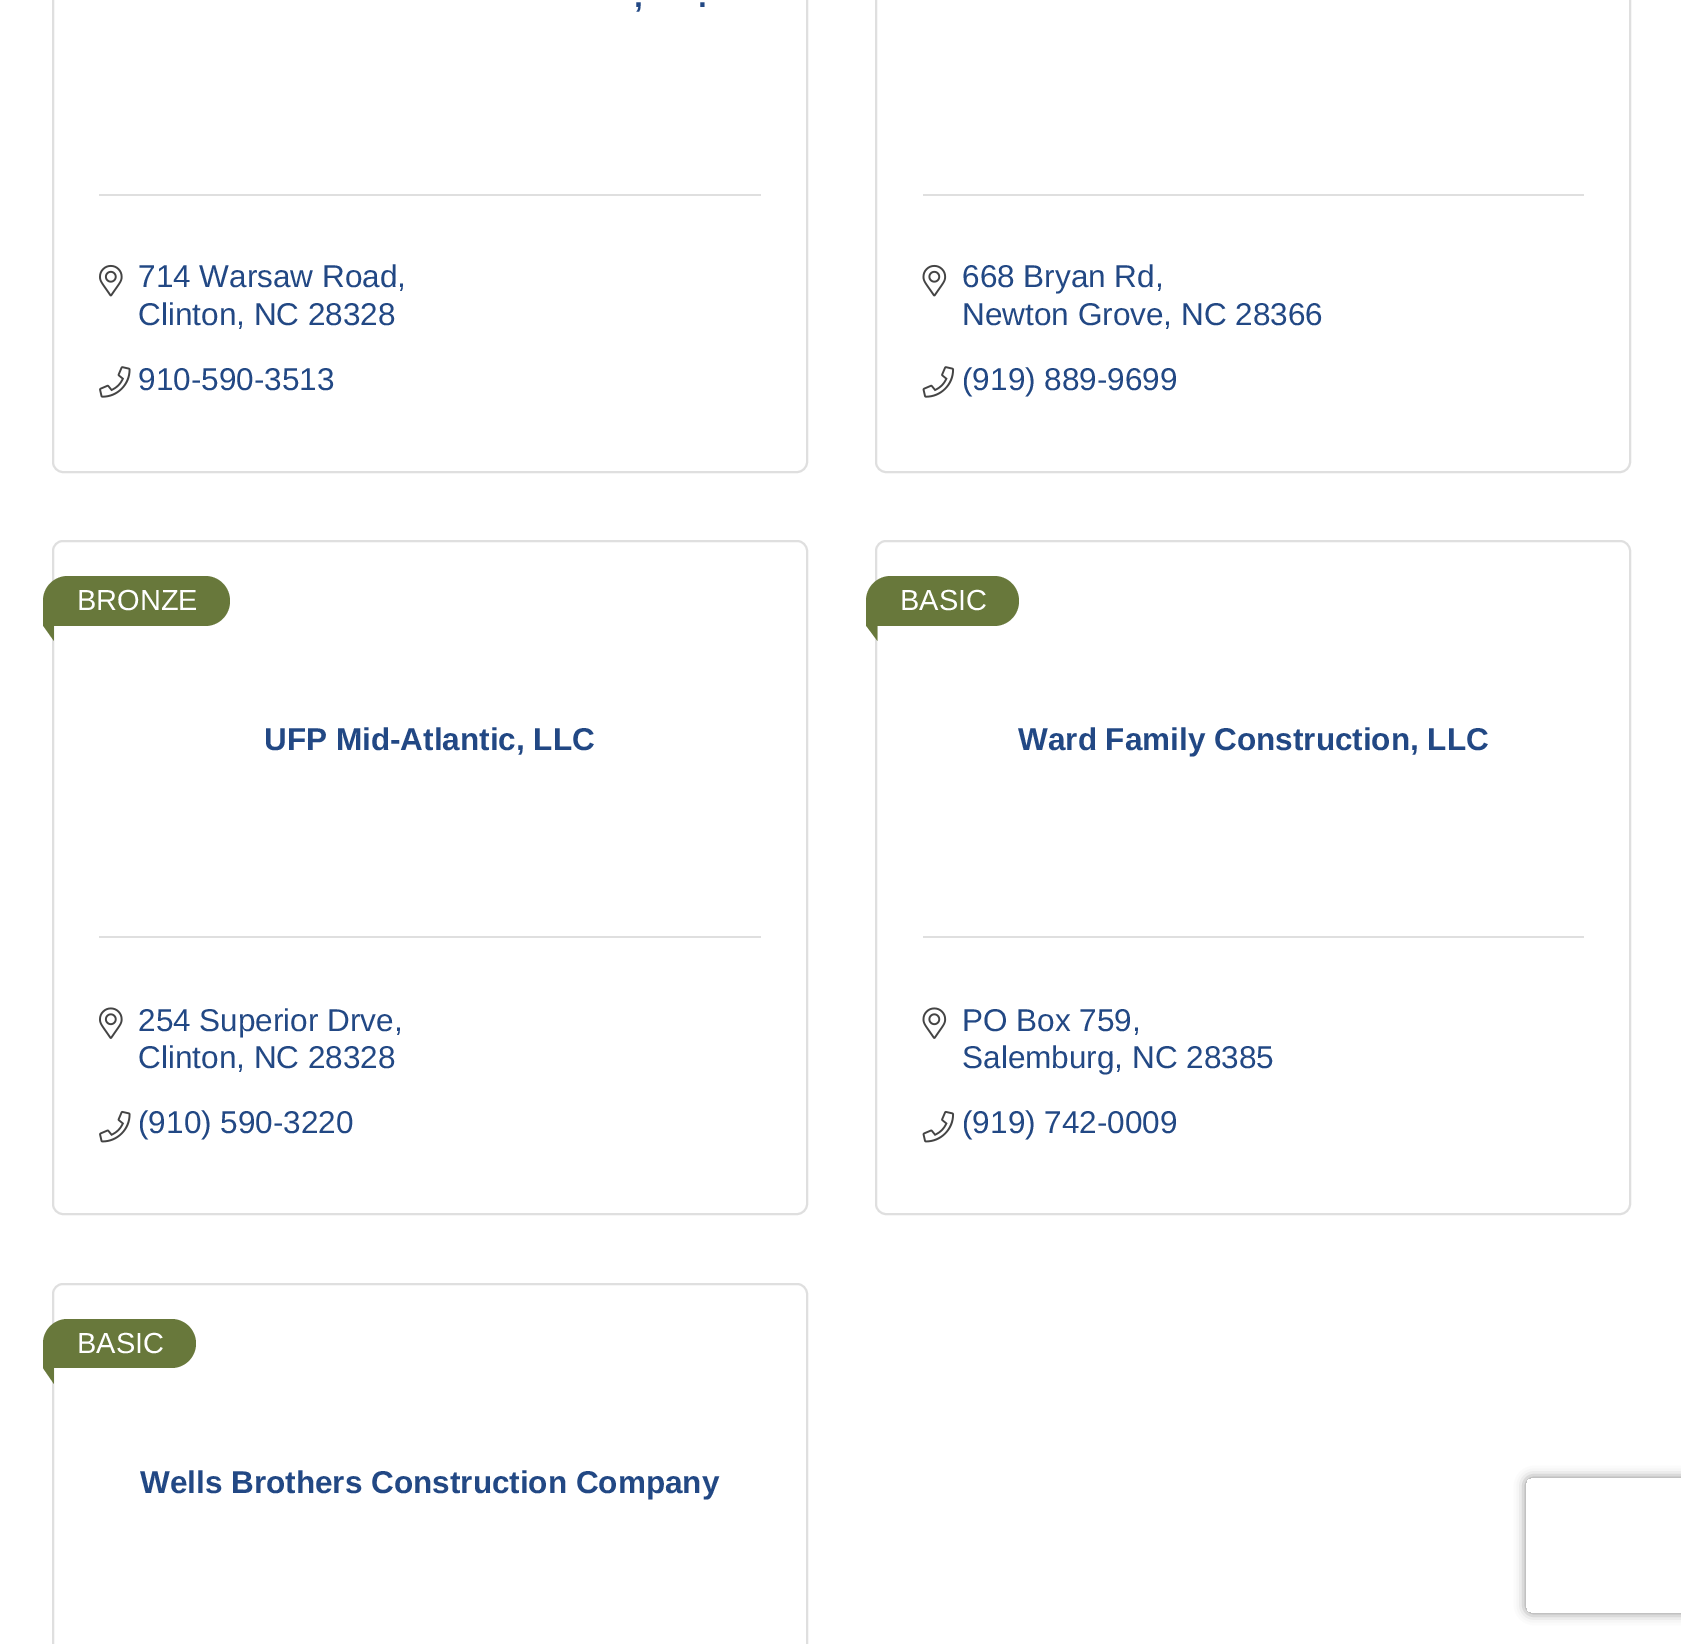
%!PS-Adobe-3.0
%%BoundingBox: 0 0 1681 1644
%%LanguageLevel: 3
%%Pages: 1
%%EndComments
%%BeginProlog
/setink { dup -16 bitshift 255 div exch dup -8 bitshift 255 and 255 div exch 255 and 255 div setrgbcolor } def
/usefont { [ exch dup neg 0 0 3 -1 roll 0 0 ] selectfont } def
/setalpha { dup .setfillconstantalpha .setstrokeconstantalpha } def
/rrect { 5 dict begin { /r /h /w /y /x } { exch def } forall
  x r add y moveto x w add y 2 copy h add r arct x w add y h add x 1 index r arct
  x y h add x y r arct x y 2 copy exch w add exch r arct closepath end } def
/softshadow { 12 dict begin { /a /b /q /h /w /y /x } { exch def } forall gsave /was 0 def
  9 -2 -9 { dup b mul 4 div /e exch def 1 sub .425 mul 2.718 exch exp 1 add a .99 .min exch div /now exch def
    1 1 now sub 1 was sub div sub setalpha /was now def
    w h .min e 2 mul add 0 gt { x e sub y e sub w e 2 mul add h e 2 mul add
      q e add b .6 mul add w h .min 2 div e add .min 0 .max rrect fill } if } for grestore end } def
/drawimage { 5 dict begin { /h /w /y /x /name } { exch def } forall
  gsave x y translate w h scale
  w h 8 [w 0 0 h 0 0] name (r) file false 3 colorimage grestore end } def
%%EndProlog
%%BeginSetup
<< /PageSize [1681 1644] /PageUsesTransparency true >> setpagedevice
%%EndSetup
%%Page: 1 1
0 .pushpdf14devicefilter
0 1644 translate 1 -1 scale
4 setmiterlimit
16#FFFFFF setink
0 0 1681 1644 rectfill
16#DFDFDF setink
2 setlinewidth
53 -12 754 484 10 rrect stroke
/LiberationSans-Bold 31.5 usefont
16#224884 setink
634 7 moveto (,) show
698 7 moveto (.) show
16#DFDFDF setink
99 194 662 2 rectfill
(img1.raw) 99 264 24 33 drawimage
/LiberationSans-Regular 31.5 usefont
16#224884 setink
138 287 moveto (714 Warsaw Road,) show
138 325 moveto (Clinton, NC 28328) show
(img2.raw) 99 366 32 32 drawimage
138 390 moveto (910-590-3513) show
16#DFDFDF setink
876 -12 754 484 10 rrect stroke
923 194 661 2 rectfill
(img3.raw) 922 264 25 33 drawimage
16#224884 setink
962 287 moveto (668 Bryan Rd,) show
962 325 moveto (Newton Grove, NC 28366) show
(img4.raw) 922 366 33 32 drawimage
962 390 moveto (\(919\) 889-9699) show
16#DFDFDF setink
53 541 754 673 10 rrect stroke
16#68783B setink
68 576 moveto 205 576 lineto 219 576 230 587 230 601 curveto 230 615 219 626 205 626 curveto 44 626 lineto 43.5 626 43 625.5 43 625 curveto 43 601 lineto 43 587 54 576 68 576 curveto closepath fill
/LiberationSans-Regular 29 usefont
16#FFFFFF setink
77 610 moveto (BRONZE) show
16#68783B setink
54 610 moveto 54 641 lineto 43 625.5 lineto closepath fill
/LiberationSans-Bold 31.5 usefont
16#224884 setink
264 750 moveto (UFP Mid-Atlantic, LLC) show
16#DFDFDF setink
99 936 662 2 rectfill
(img5.raw) 99 1007 24 32 drawimage
/LiberationSans-Regular 31.5 usefont
16#224884 setink
138 1031 moveto (254 Superior Drve,) show
138 1068 moveto (Clinton, NC 28328) show
(img6.raw) 99 1110 32 33 drawimage
138 1133 moveto (\(910\) 590-3220) show
16#DFDFDF setink
876 541 754 673 10 rrect stroke
16#68783B setink
891 576 moveto 994 576 lineto 1008 576 1019 587 1019 601 curveto 1019 615 1008 626 994 626 curveto 867 626 lineto 866.5 626 866 625.5 866 625 curveto 866 601 lineto 866 587 877 576 891 576 curveto closepath fill
/LiberationSans-Regular 29 usefont
16#FFFFFF setink
900 610 moveto (BASIC) show
16#68783B setink
877.5 610 moveto 877.5 641 lineto 866 625.5 lineto closepath fill
/LiberationSans-Bold 31.5 usefont
16#224884 setink
1018 750 moveto (Ward Family Construction, LLC) show
16#DFDFDF setink
923 936 661 2 rectfill
(img7.raw) 922 1007 25 32 drawimage
/LiberationSans-Regular 31.5 usefont
16#224884 setink
962 1031 moveto (PO Box 759,) show
962 1068 moveto (Salemburg, NC 28385) show
(img8.raw) 922 1110 33 33 drawimage
962 1133 moveto (\(919\) 742-0009) show
16#DFDFDF setink
53 1284 754 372 10 rrect stroke
16#68783B setink
67.5 1319 moveto 171.5 1319 lineto 185 1319 196 1330 196 1343.5 curveto 196 1357 185 1368 171.5 1368 curveto 44 1368 lineto 43.5 1368 43 1367.5 43 1367 curveto 43 1343.5 lineto 43 1330 54 1319 67.5 1319 curveto closepath fill
/LiberationSans-Regular 29 usefont
16#FFFFFF setink
77 1353 moveto (BASIC) show
16#68783B setink
54 1352 moveto 54 1384 lineto 43 1368 lineto closepath fill
/LiberationSans-Bold 31.5 usefont
16#224884 setink
140 1493 moveto (Wells Brothers Construction Company) show
gsave
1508 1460 moveto 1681 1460 lineto 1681 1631 lineto 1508 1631 lineto closepath 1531 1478 moveto 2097 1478 lineto 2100 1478 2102 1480 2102 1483 curveto 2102 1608 lineto 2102 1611 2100 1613 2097 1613 curveto 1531 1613 lineto 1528 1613 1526 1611 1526 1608 curveto 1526 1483 lineto 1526 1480 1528 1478 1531 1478 curveto closepath eoclip newpath
16#808080 setink
1526 1478 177 135 5 5.5 1 softshadow
grestore
.poppdf14devicefilter showpage
%%EOF
